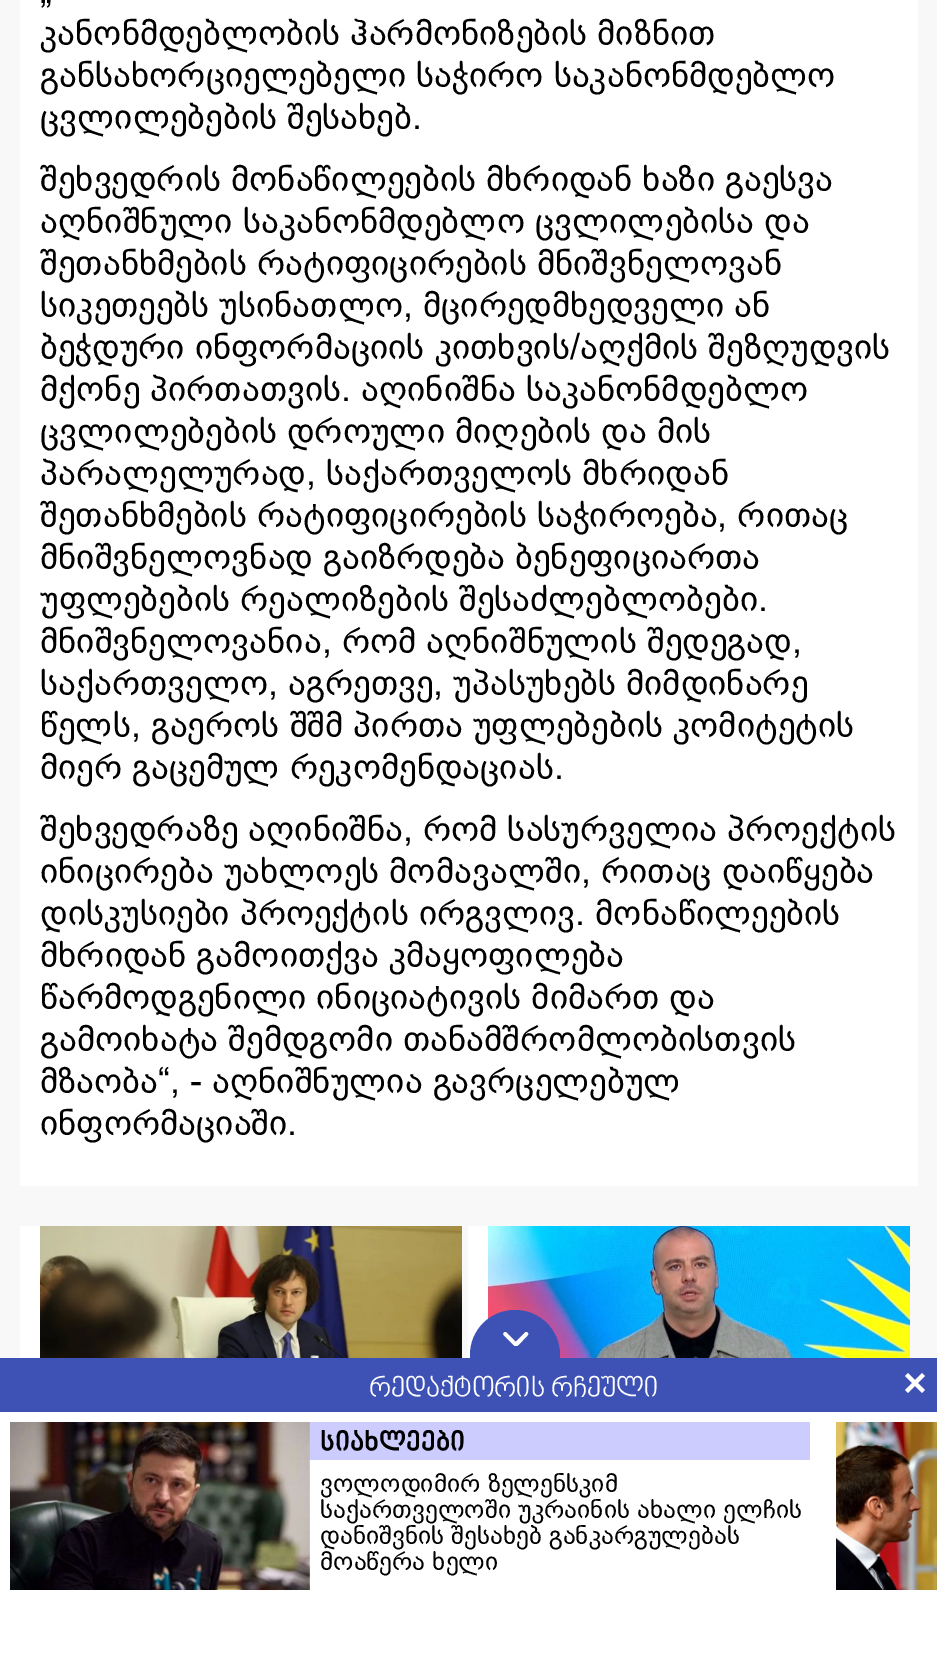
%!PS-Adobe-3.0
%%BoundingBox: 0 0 937 1668
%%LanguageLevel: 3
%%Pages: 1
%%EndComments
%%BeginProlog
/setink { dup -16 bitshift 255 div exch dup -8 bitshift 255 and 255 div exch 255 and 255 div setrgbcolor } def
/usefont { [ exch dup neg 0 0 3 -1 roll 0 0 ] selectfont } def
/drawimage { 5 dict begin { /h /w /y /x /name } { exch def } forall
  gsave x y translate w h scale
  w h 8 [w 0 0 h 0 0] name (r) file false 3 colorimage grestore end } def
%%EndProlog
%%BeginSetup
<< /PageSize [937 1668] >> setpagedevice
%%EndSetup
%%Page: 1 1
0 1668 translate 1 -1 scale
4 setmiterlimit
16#F8F8F8 setink
0 0 937 1668 rectfill
16#FFFFFF setink
20 0 898 1186 rectfill
/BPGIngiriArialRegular-Regular 36 usefont
16#000000 setink
[
    [(„) 40 3]
    [(კანონმდებლობის ჰარმონიზების მიზნით) 40 45]
    [(განსახორციელებელი საჭირო საკანონმდებლო) 40 87]
    [(ცვლილებების შესახებ.) 40 129]
    [(შეხვედრის მონაწილეების მხრიდან ხაზი გაესვა) 40 191]
    [(აღნიშნული საკანონმდებლო ცვლილებისა და) 40 233]
    [(შეთანხმების რატიფიცირების მნიშვნელოვან) 40 275]
    [(სიკეთეებს უსინათლო, მცირედმხედველი ან) 40 317]
    [(ბეჭდური ინფორმაციის კითხვის/აღქმის შეზღუდვის) 40 359]
    [(მქონე პირთათვის. აღინიშნა საკანონმდებლო) 40 401]
    [(ცვლილებების დროული მიღების და მის) 40 443]
    [(პარალელურად, საქართველოს მხრიდან) 40 485]
    [(შეთანხმების რატიფიცირების საჭიროება, რითაც) 40 527]
    [(მნიშვნელოვნად გაიზრდება ბენეფიციართა) 40 569]
    [(უფლებების რეალიზების შესაძლებლობები.) 40 611]
    [(მნიშვნელოვანია, რომ აღნიშნულის შედეგად,) 40 653]
    [(საქართველო, აგრეთვე, უპასუხებს მიმდინარე) 40 695]
    [(წელს, გაეროს შშმ პირთა უფლებების კომიტეტის) 40 737]
    [(მიერ გაცემულ რეკომენდაციას.) 40 779]
    [(შეხვედრაზე აღინიშნა, რომ სასურველია პროექტის) 40 841]
    [(ინიცირება უახლოეს მომავალში, რითაც დაიწყება) 40 883]
    [(დისკუსიები პროექტის ირგვლივ. მონაწილეების) 40 925]
    [(მხრიდან გამოითქვა კმაყოფილება) 40 967]
    [(წარმოდგენილი ინიციატივის მიმართ და) 40 1009]
    [(გამოიხატა შემდგომი თანამშრომლობისთვის) 40 1051]
    [(მზაობა“, - აღნიშნულია გავრცელებულ) 40 1093]
    [(ინფორმაციაში.) 40 1135]
] { aload pop moveto show } forall
16#FFFFFF setink
20 1226 20 132 rectfill
(img1.raw) 40 1226 422 132 drawimage
468 1226 20 132 rectfill
(img2.raw) 488 1226 422 132 drawimage
16#3E51B5 setink
0 1358 937 54 rectfill
515 1310 moveto 540 1310 560 1330 560 1355 curveto 560 1360 lineto 470 1360 lineto 470 1355 lineto 470 1330 490 1310 515 1310 curveto closepath fill
16#FFFFFF setink
527.5 1332.5 moveto 528.5 1333.5 528.5 1334.5 527.5 1335.5 curveto 518 1345.5 lineto 517 1346 516 1346 515 1345.5 curveto 514 1344.5 514 1343.5 515 1342.5 curveto 525 1332.5 lineto 525.5 1332 527 1332 527.5 1332.5 curveto closepath fill
504 1332.5 moveto 504.5 1332 506 1332 506.5 1332.5 curveto 516.5 1342.5 lineto 517.5 1343.5 517.5 1344.5 516.5 1345.5 curveto 516 1346 514.5 1346 514 1345.5 curveto 504 1335.5 lineto 503 1334.5 503 1333.5 504 1332.5 curveto closepath fill
/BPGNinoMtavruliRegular-Italic 28 usefont
369 1398 moveto (რედაქტორის რჩეული) show
922 1373 moveto 925 1376 lineto 908 1393 lineto 905 1390 lineto closepath fill
905 1376 moveto 908 1373 lineto 925 1390 lineto 922 1393 lineto closepath fill
0 1412 937 256 rectfill
16#CCCCFF setink
309 1422 501 38 rectfill
(img3.raw) 10 1422 300 168 drawimage
/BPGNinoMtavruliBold-BoldItalic 28 usefont
16#000000 setink
320 1452 moveto (სიახლეები) show
/BPGIngiriArialRegular-Regular 26 usefont
[
    [(ვოლოდიმირ ზელენსკიმ) 320 1492]
    [(საქართველოში უკრაინის ახალი ელჩის) 320 1518]
    [(დანიშვნის შესახებ განკარგულებას) 320 1544]
    [(მოაწერა ხელი) 320 1570]
] { aload pop moveto show } forall
(img4.raw) 836 1422 101 168 drawimage
showpage
%%EOF
